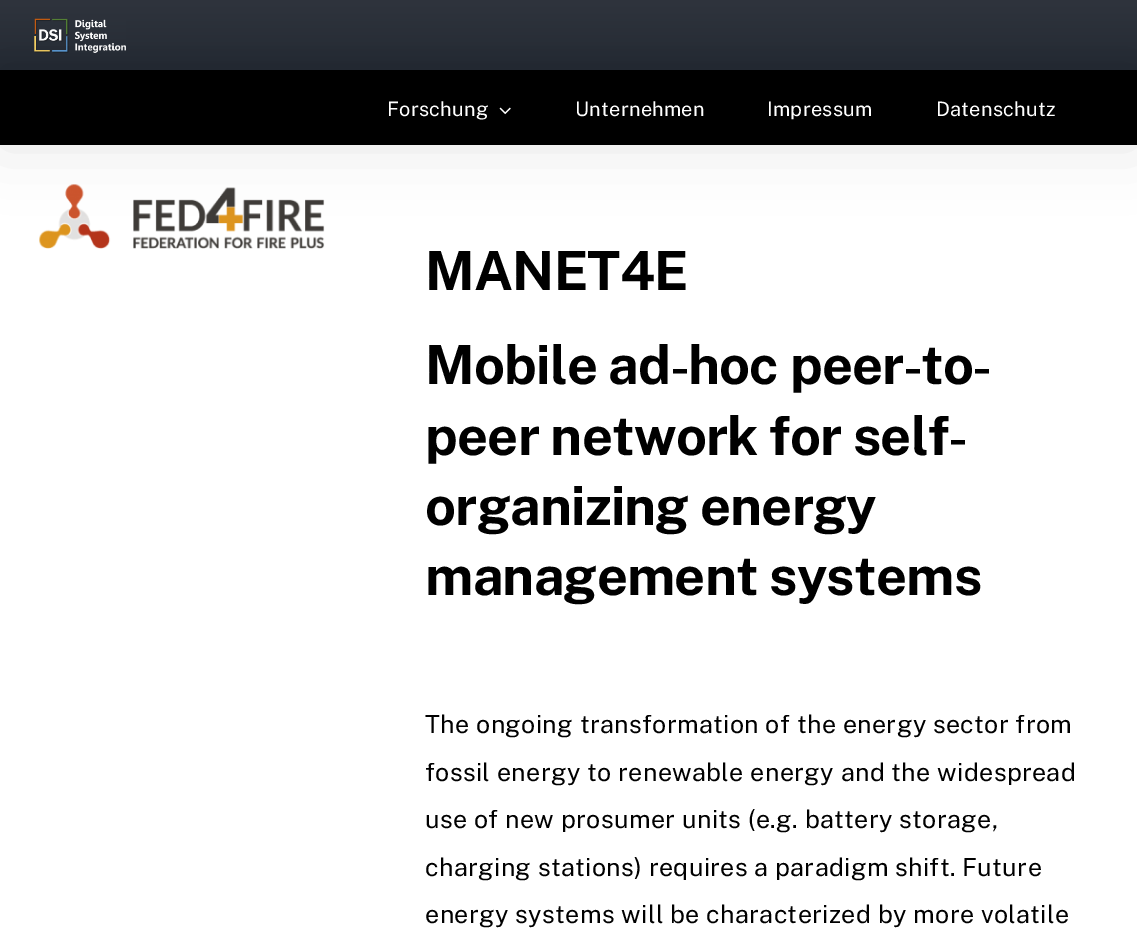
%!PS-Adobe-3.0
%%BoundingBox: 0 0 1137 943
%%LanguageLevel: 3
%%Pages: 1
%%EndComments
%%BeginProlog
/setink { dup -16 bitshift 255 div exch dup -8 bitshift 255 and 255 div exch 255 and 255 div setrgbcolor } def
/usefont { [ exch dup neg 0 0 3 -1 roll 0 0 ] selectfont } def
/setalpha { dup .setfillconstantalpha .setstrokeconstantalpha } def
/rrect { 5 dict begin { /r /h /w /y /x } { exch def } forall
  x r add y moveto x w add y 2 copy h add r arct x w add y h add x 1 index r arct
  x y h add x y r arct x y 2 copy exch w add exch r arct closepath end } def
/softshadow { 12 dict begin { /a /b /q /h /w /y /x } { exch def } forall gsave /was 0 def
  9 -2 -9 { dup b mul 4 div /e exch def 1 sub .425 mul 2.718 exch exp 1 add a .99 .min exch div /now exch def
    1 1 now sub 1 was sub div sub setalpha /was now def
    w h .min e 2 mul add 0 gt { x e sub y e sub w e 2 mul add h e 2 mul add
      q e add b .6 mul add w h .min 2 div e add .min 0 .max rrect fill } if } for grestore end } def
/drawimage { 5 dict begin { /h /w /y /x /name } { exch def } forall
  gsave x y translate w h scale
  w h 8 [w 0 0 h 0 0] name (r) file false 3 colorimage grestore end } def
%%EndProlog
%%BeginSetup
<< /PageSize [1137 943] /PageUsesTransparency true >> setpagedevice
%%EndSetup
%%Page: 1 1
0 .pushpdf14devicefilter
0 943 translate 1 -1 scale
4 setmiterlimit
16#FFFFFF setink
0 0 1137 943 rectfill
gsave 0 0 moveto 1137 0 lineto 1137 70 lineto 0 70 lineto closepath clip newpath
<< /ShadingType 2 /ColorSpace /DeviceRGB /Coords [569 0 569 70] /Extend [true true] /Function << /FunctionType 2 /Domain [0 1] /C0 [0.184 0.204 0.239] /C1 [0.141 0.165 0.2] /N 1 >> >> shfill grestore
(img1.raw) 34 18 92 35 drawimage
(img3.raw) 39 184 286 65 drawimage
16#000000 setink
-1 69 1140 77 0 31 0.1 softshadow
0 70 1137 75 rectfill
/PublicSans-Regular 20 usefont
16#FFFFFF setink
387 116 moveto 0.25 0 (Forschung) ashow
(img2.raw) 499 107 12 8 drawimage
575 116 moveto 0.25 0 (Unternehmen) ashow
767 116 moveto 0.25 0 (Impressum) ashow
936 116 moveto 0.25 0 (Datenschutz) ashow
/PublicSans-Bold 54 usefont
16#000000 setink
425 290 moveto -0.8 0 (MANET4E) ashow
425 384 moveto -0.8 0 (Mobile ad) ashow
/LiberationSerif-Bold 54 usefont
671 384 moveto -0.8 0 (‐) ashow
/PublicSans-Bold 54 usefont
688 384 moveto -0.8 0 (hoc peer) ashow
/LiberationSerif-Bold 54 usefont
904 384 moveto -0.8 0 (‐) ashow
/PublicSans-Bold 54 usefont
921 384 moveto -0.8 0 (to) ashow
/LiberationSerif-Bold 54 usefont
973 384 moveto -0.8 0 (‐) ashow
/PublicSans-Bold 54 usefont
425 455 moveto -0.8 0 (peer network for self) ashow
/LiberationSerif-Bold 54 usefont
949 455 moveto -0.8 0 (‐) ashow
/PublicSans-Bold 54 usefont
425 525 moveto -0.8 0 (organizing energy) ashow
425 595 moveto -0.8 0 (management systems) ashow
/PublicSans-Regular 25 usefont
425 733 moveto 0.38 0 (The ongoing transformation of the energy sector from) ashow
425 781 moveto 0.38 0 (fossil energy to renewable energy and the widespread) ashow
425 828 moveto 0.38 0 (use of new prosumer units \(e.g. battery storage,) ashow
425 876 moveto 0.38 0 (charging stations\) requires a paradigm shift. Future) ashow
425 923 moveto 0.38 0 (energy systems will be characterized by more volatile) ashow
.poppdf14devicefilter showpage
%%EOF
